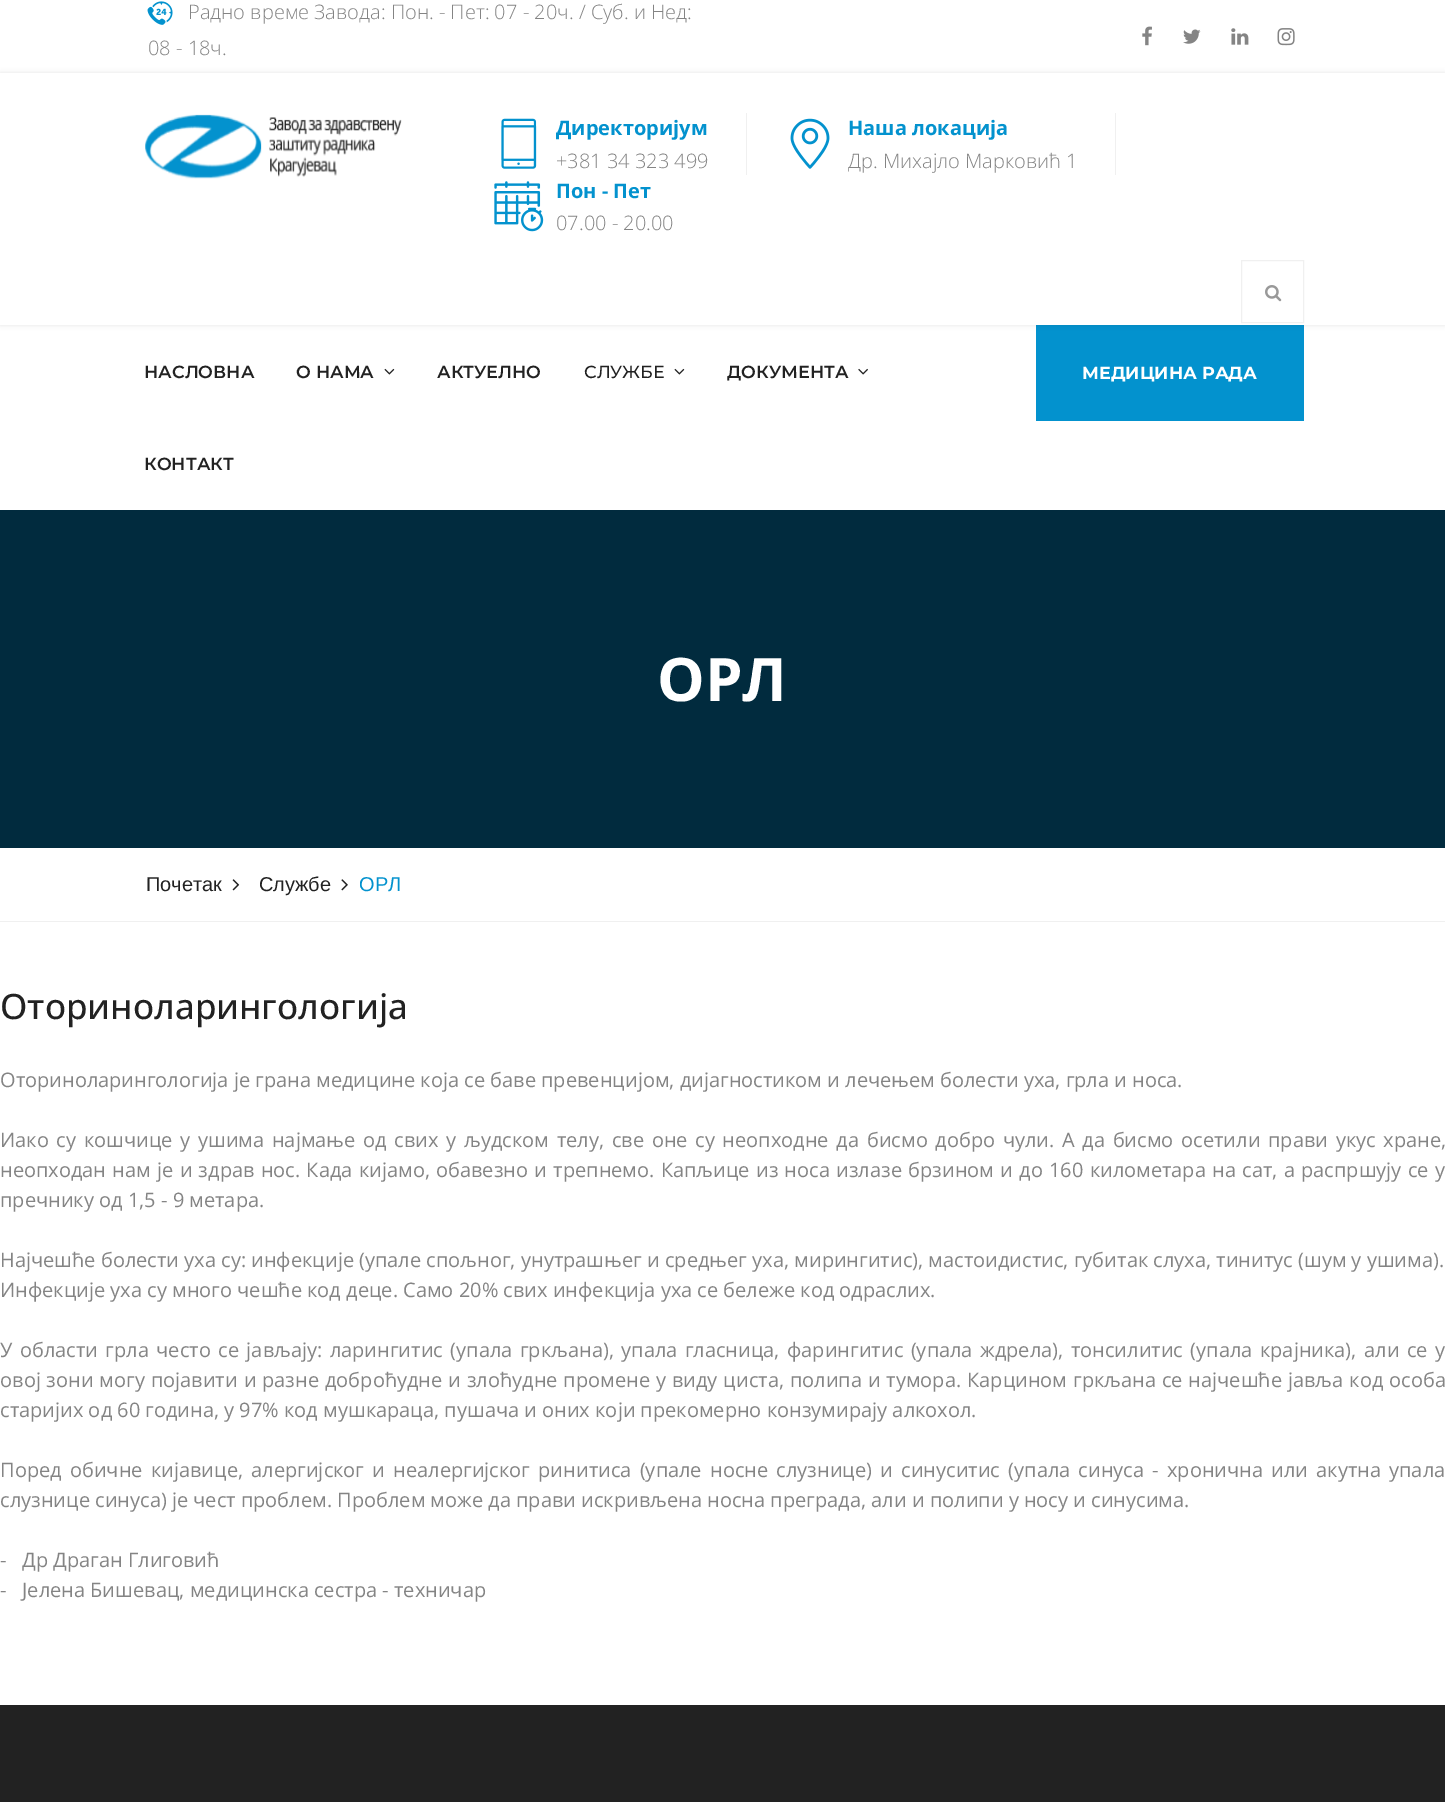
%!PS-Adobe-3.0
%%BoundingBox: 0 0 1445 1802
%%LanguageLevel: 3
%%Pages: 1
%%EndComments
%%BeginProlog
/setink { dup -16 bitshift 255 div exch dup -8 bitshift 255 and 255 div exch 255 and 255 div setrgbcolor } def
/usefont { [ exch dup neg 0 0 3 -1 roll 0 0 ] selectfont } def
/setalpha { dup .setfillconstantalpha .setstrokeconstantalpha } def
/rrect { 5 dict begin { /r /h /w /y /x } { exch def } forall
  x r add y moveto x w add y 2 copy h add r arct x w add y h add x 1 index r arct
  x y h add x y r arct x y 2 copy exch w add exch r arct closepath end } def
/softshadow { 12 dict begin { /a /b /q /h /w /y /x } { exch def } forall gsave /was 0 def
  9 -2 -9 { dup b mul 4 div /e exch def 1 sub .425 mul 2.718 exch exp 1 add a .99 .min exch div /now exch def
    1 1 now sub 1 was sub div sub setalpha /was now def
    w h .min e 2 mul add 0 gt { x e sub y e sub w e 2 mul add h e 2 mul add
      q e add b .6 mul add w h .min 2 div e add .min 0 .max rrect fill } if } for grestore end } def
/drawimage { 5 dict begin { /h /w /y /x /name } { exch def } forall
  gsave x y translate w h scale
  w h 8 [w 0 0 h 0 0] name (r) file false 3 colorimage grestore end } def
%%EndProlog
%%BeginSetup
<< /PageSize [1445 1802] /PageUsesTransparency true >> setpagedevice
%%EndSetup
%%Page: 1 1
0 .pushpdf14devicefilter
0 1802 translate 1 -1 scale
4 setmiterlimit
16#FFFFFF setink
0 0 1445 1802 rectfill
(img1.raw) 147 1 26 24 drawimage
/OpenSans-Light 20 usefont
16#848484 setink
188 19 moveto (Радно време Завода: Пон. - Пет: 07 - 20ч. / Суб. и Нед:) show
148 55 moveto (08 - 18ч.) show
(img2.raw) 1142 26 10 20 drawimage
(img3.raw) 1183 29 18 15 drawimage
(img4.raw) 1231 28 18 17 drawimage
(img5.raw) 1277 28 18 18 drawimage
16#0392CE setink
1036 325 268 96 rectfill
gsave
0 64 moveto 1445 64 lineto 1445 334 lineto 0 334 lineto closepath 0 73 moveto 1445 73 lineto 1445 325 lineto 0 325 lineto closepath eoclip newpath
16#000000 setink
0 73 1445 252 0 2.5 0.1 softshadow
grestore
(img6.raw) 145 114 257 65 drawimage
16#F0F0F0 setink
746 113 1 62 rectfill
(img7.raw) 501 118 36 51 drawimage
/OpenSans-Bold 20 usefont
16#0392CE setink
556 135 moveto (Директоријум) show
/OpenSans-Light 20 usefont
16#848484 setink
556 168 moveto (+381 34 323 499) show
16#F0F0F0 setink
1115 113 1 62 rectfill
(img8.raw) 790 118 40 51 drawimage
/OpenSans-Bold 20 usefont
16#0392CE setink
848 135 moveto (Наша локација) show
/OpenSans-Light 20 usefont
16#848484 setink
848 168 moveto (Др. Михајло Марковић 1) show
(img9.raw) 494 181 50 51 drawimage
/OpenSans-Bold 20 usefont
16#0392CE setink
556 198 moveto (Пон - Пет) show
/OpenSans-Light 20 usefont
16#848484 setink
556 230 moveto (07.00 - 20.00) show
16#F0F0F0 setink
1241.5 260.5 62 62 rectstroke
(img10.raw) 1265 285 17 17 drawimage
/Montserrat-SemiBold 17.5 usefont
16#222222 setink
144 378 moveto (НАСЛОВНА) show
296 378 moveto (О НАМА) show
(img11.raw) 384 368 11 7 drawimage
437 378 moveto (АКТУЕЛНО) show
/Montserrat-Medium 17.5 usefont
584 378 moveto (СЛУЖБЕ) show
(img11.raw) 674 368 11 7 drawimage
/Montserrat-SemiBold 17.5 usefont
727 378 moveto (ДОКУМЕНТА) show
(img12.raw) 858 368 10 7 drawimage
144 470 moveto (КОНТАКТ) show
/Montserrat-Bold 17.5 usefont
16#FFFFFF setink
1082 379 moveto (МЕДИЦИНА РАДА) show
16#012B3E setink
0 510 1445 338 rectfill
/OpenSans-Bold 60 usefont
16#FFFFFF setink
657 701 moveto (ОРЛ) show
16#F0F0F0 setink
0 921 1445 1 rectfill
/LiberationSans-Regular 20 usefont
16#222222 setink
146 891 moveto (Почетак) show
(img13.raw) 232 879 8 12 drawimage
259 891 moveto (Службе) show
(img14.raw) 341 879 7 12 drawimage
16#0392CE setink
359 891 moveto (ОРЛ) show
/OpenSans-Medium 35 usefont
16#222222 setink
0 1019 moveto (Оториноларингологија) show
/OpenSans-Regular 20 usefont
16#848484 setink
0 1087 moveto (Оториноларингологија је грана медицине која се баве превенцијом, дијагностиком и лечењем болести уха, грла и носа.) show
0 1147 moveto 2.5 0 32 (Иако су кошчице у ушима најмање од свих у људском телу, све оне су неопходне да бисмо добро чули. А да бисмо осетили прави укус хране,) widthshow
0 1177 moveto 1.05 0 32 (неопходан нам је и здрав нос. Када кијамо, обавезно и трепнемо. Капљице из носа излазе брзином и до 160 километара на сат, а распршују се у) widthshow
[
    [(пречнику од 1,5 - 9 метара.) 0 1207]
    [(Најчешће болести уха су: инфекције \(упале спољног, унутрашњег и средњег уха, мирингитис\), мастоидистис, губитак слуха, тинитус \(шум у ушима\).) 0 1267]
    [(Инфекције уха су много чешће код деце. Само 20% свих инфекција уха се бележе код одраслих.) 0 1297]
] { aload pop moveto show } forall
0 1357 moveto 2.25 0 32 (У области грла често се јављају: ларингитис \(упала гркљана\), упала гласница, фарингитис \(упала ждрела\), тонсилитис \(упала крајника\), али се у) widthshow
0 1387 moveto 0.7 0 32 (овој зони могу појавити и разне доброћудне и злоћудне промене у виду циста, полипа и тумора. Карцином гркљана се најчешће јавља код особа) widthshow
0 1417 moveto (старијих од 60 година, у 97% код мушкараца, пушача и оних који прекомерно конзумирају алкохол.) show
0 1477 moveto 3 0 32 (Поред обичне кијавице, алергијског и неалергијског ринитиса \(упале носне слузнице\) и синуситис \(упала синуса - хронична или акутна упала) widthshow
[
    [(слузнице синуса\) је чест проблем. Проблем може да прави искривљена носна преграда, али и полипи у носу и синусима.) 0 1507]
    [(-) 0 1567]
    [(Др Драган Глиговић) 22 1567]
    [(-) 0 1597]
    [(Јелена Бишевац, медицинска сестра - техничар) 22 1597]
] { aload pop moveto show } forall
16#222222 setink
0 1705 1445 97 rectfill
.poppdf14devicefilter showpage
%%EOF
